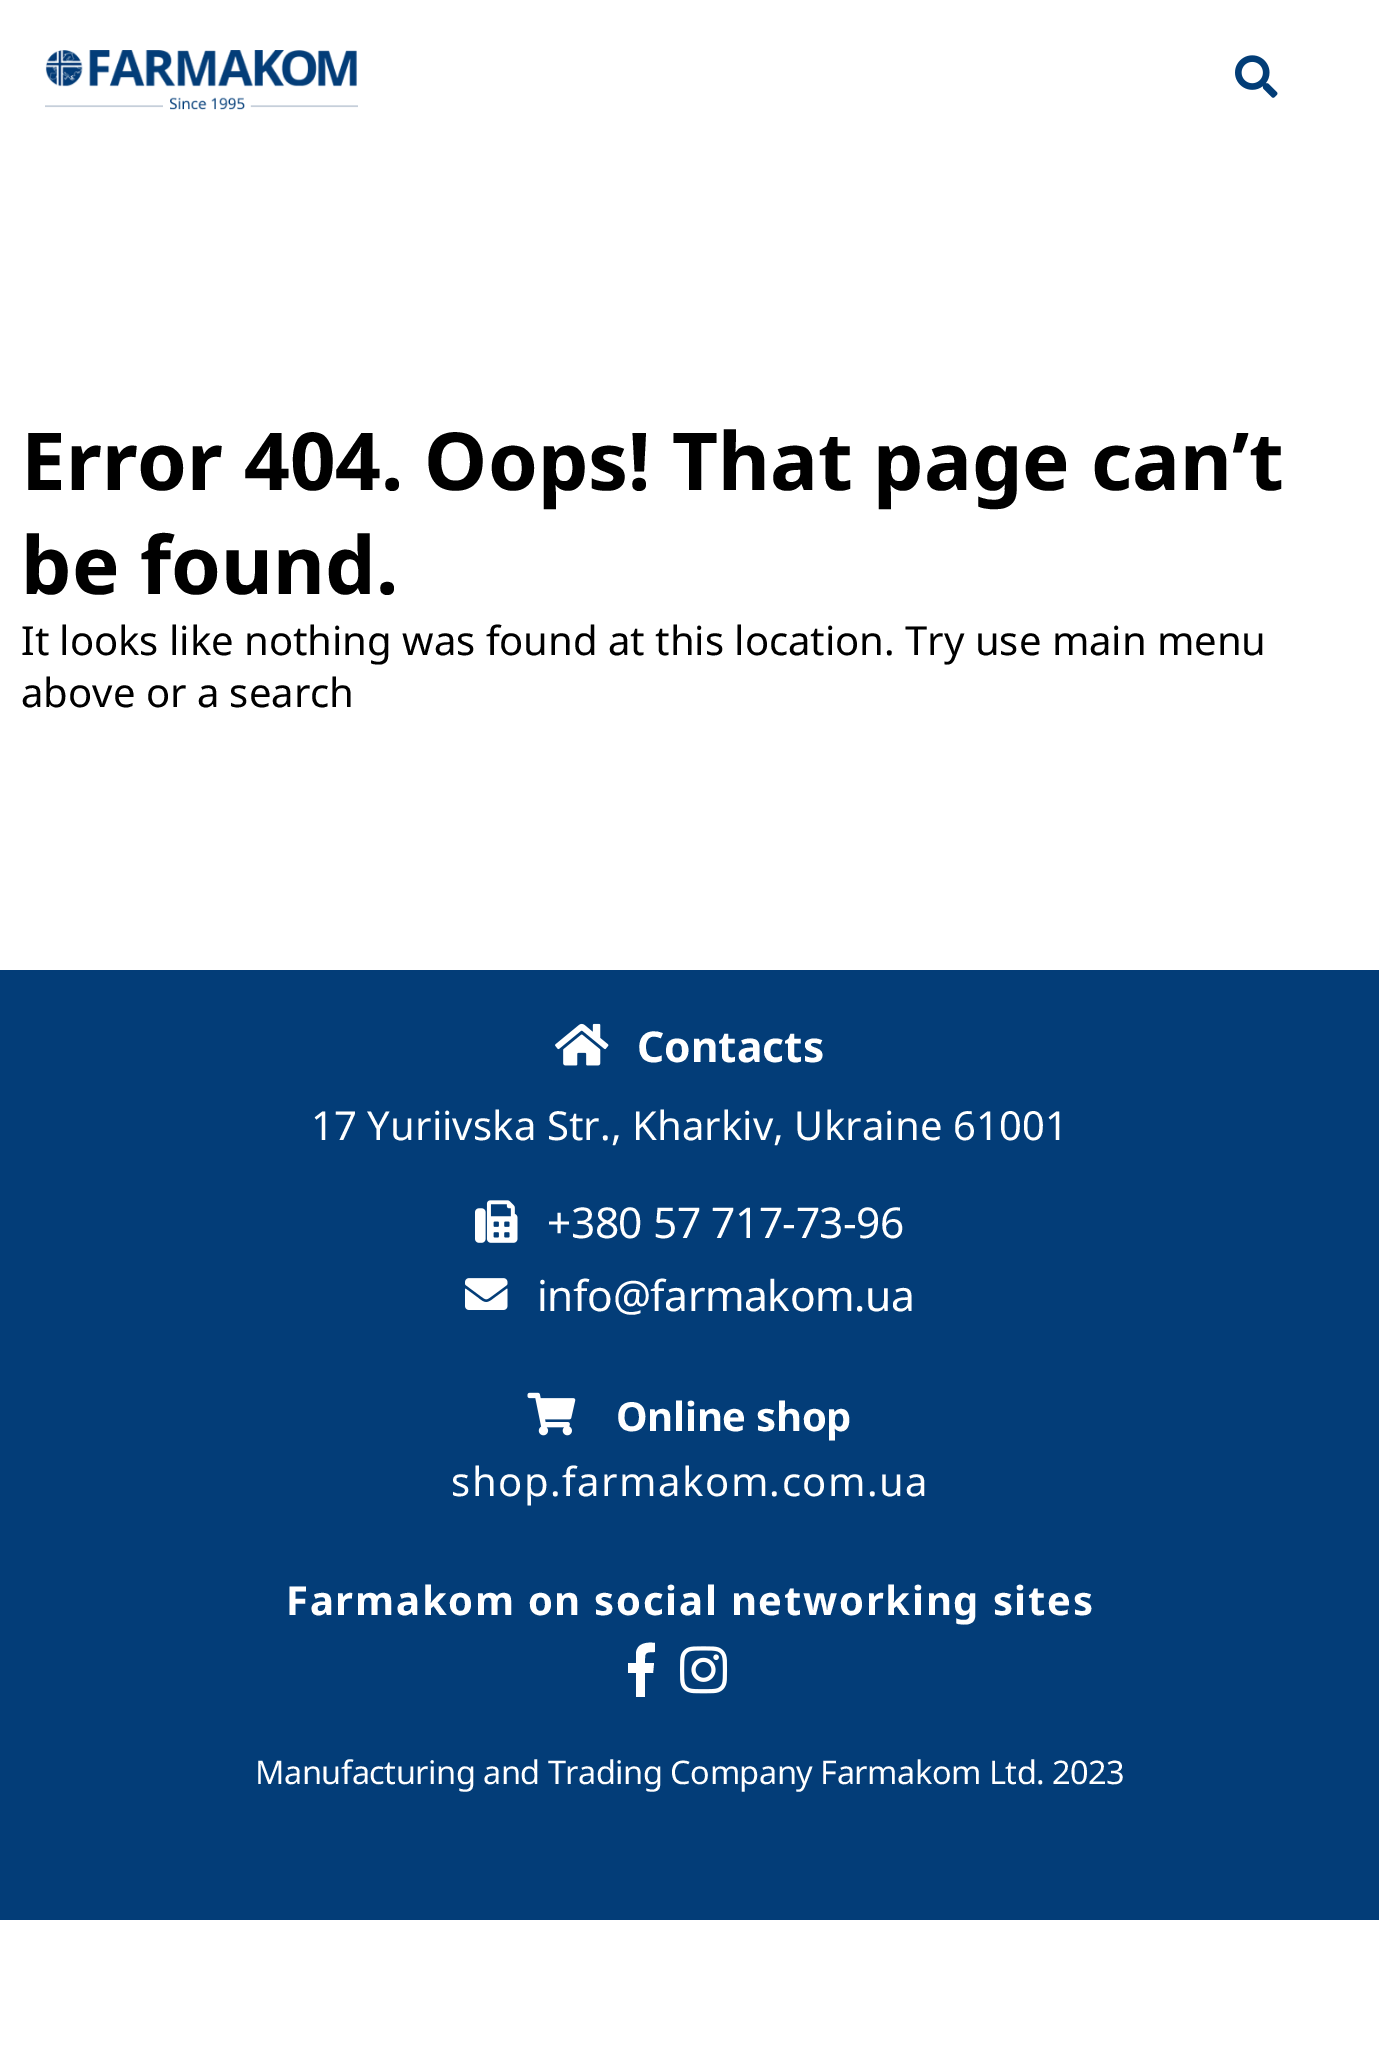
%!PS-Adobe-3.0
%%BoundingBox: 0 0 1379 2050
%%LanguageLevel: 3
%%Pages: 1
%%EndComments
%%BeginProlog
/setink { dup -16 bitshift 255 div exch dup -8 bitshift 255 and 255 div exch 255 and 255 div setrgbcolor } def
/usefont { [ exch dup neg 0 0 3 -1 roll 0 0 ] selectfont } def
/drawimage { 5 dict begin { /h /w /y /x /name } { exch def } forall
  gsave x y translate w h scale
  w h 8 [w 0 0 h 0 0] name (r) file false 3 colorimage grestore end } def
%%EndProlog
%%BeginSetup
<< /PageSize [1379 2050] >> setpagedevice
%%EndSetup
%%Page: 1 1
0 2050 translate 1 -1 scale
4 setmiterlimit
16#FFFFFF setink
0 0 1379 2050 rectfill
(img1.raw) 45 50 313 60 drawimage
(img2.raw) 1235 55 43 43 drawimage
/NotoSans-Bold 80 usefont
16#000000 setink
21 490 moveto (Error 404. Oops! That page can’t) show
21 594 moveto (be found.) show
/NotoSans-Regular 40 usefont
21 655 moveto (It looks like nothing was found at this location. Try use main menu) show
21 707 moveto (above or a search) show
16#033D78 setink
0 970 1379 950 rectfill
(img3.raw) 555 1023 54 43 drawimage
/NotoSans-Bold 42.5 usefont
16#FFFFFF setink
637 1062 moveto (Contacts) show
/NotoSans-Regular 40 usefont
311 1140 moveto 0.1 0 (17 Yuriivska Str., Kharkiv, Ukraine 61001) ashow
(img4.raw) 475 1200 43 43 drawimage
/NotoSans-Regular 42.5 usefont
547 1238 moveto -0.5 0 (+380 57 717-73-96) ashow
(img5.raw) 465 1278 43 32 drawimage
537 1311 moveto -0.5 0 (info@farmakom.ua) ashow
(img6.raw) 527 1392 49 44 drawimage
/NotoSans-Bold 40 usefont
616 1431 moveto -0.25 0 (Online shop) ashow
/NotoSans-Regular 40 usefont
451 1496 moveto 1.5 0 (shop.farmakom.com.ua) ashow
/NotoSans-Bold 40 usefont
286 1615 moveto 1.75 0 (Farmakom on social networking sites) ashow
636 1697 moveto 636 1673 lineto 628 1673 lineto 628 1663 lineto 636 1663 lineto 636 1653 lineto 637 1643 647 1642 655 1643 curveto 655 1652 lineto 644 1652 645 1653 645 1663 curveto 654 1663 lineto 653 1673 lineto 645 1673 lineto 645 1697 lineto closepath fill
(img7.raw) 680 1646 48 48 drawimage
/NotoSans-Regular 32.5 usefont
255 1784 moveto -0.5 0 (Manufacturing and Trading Company Farmakom Ltd. 2023) ashow
showpage
%%EOF
